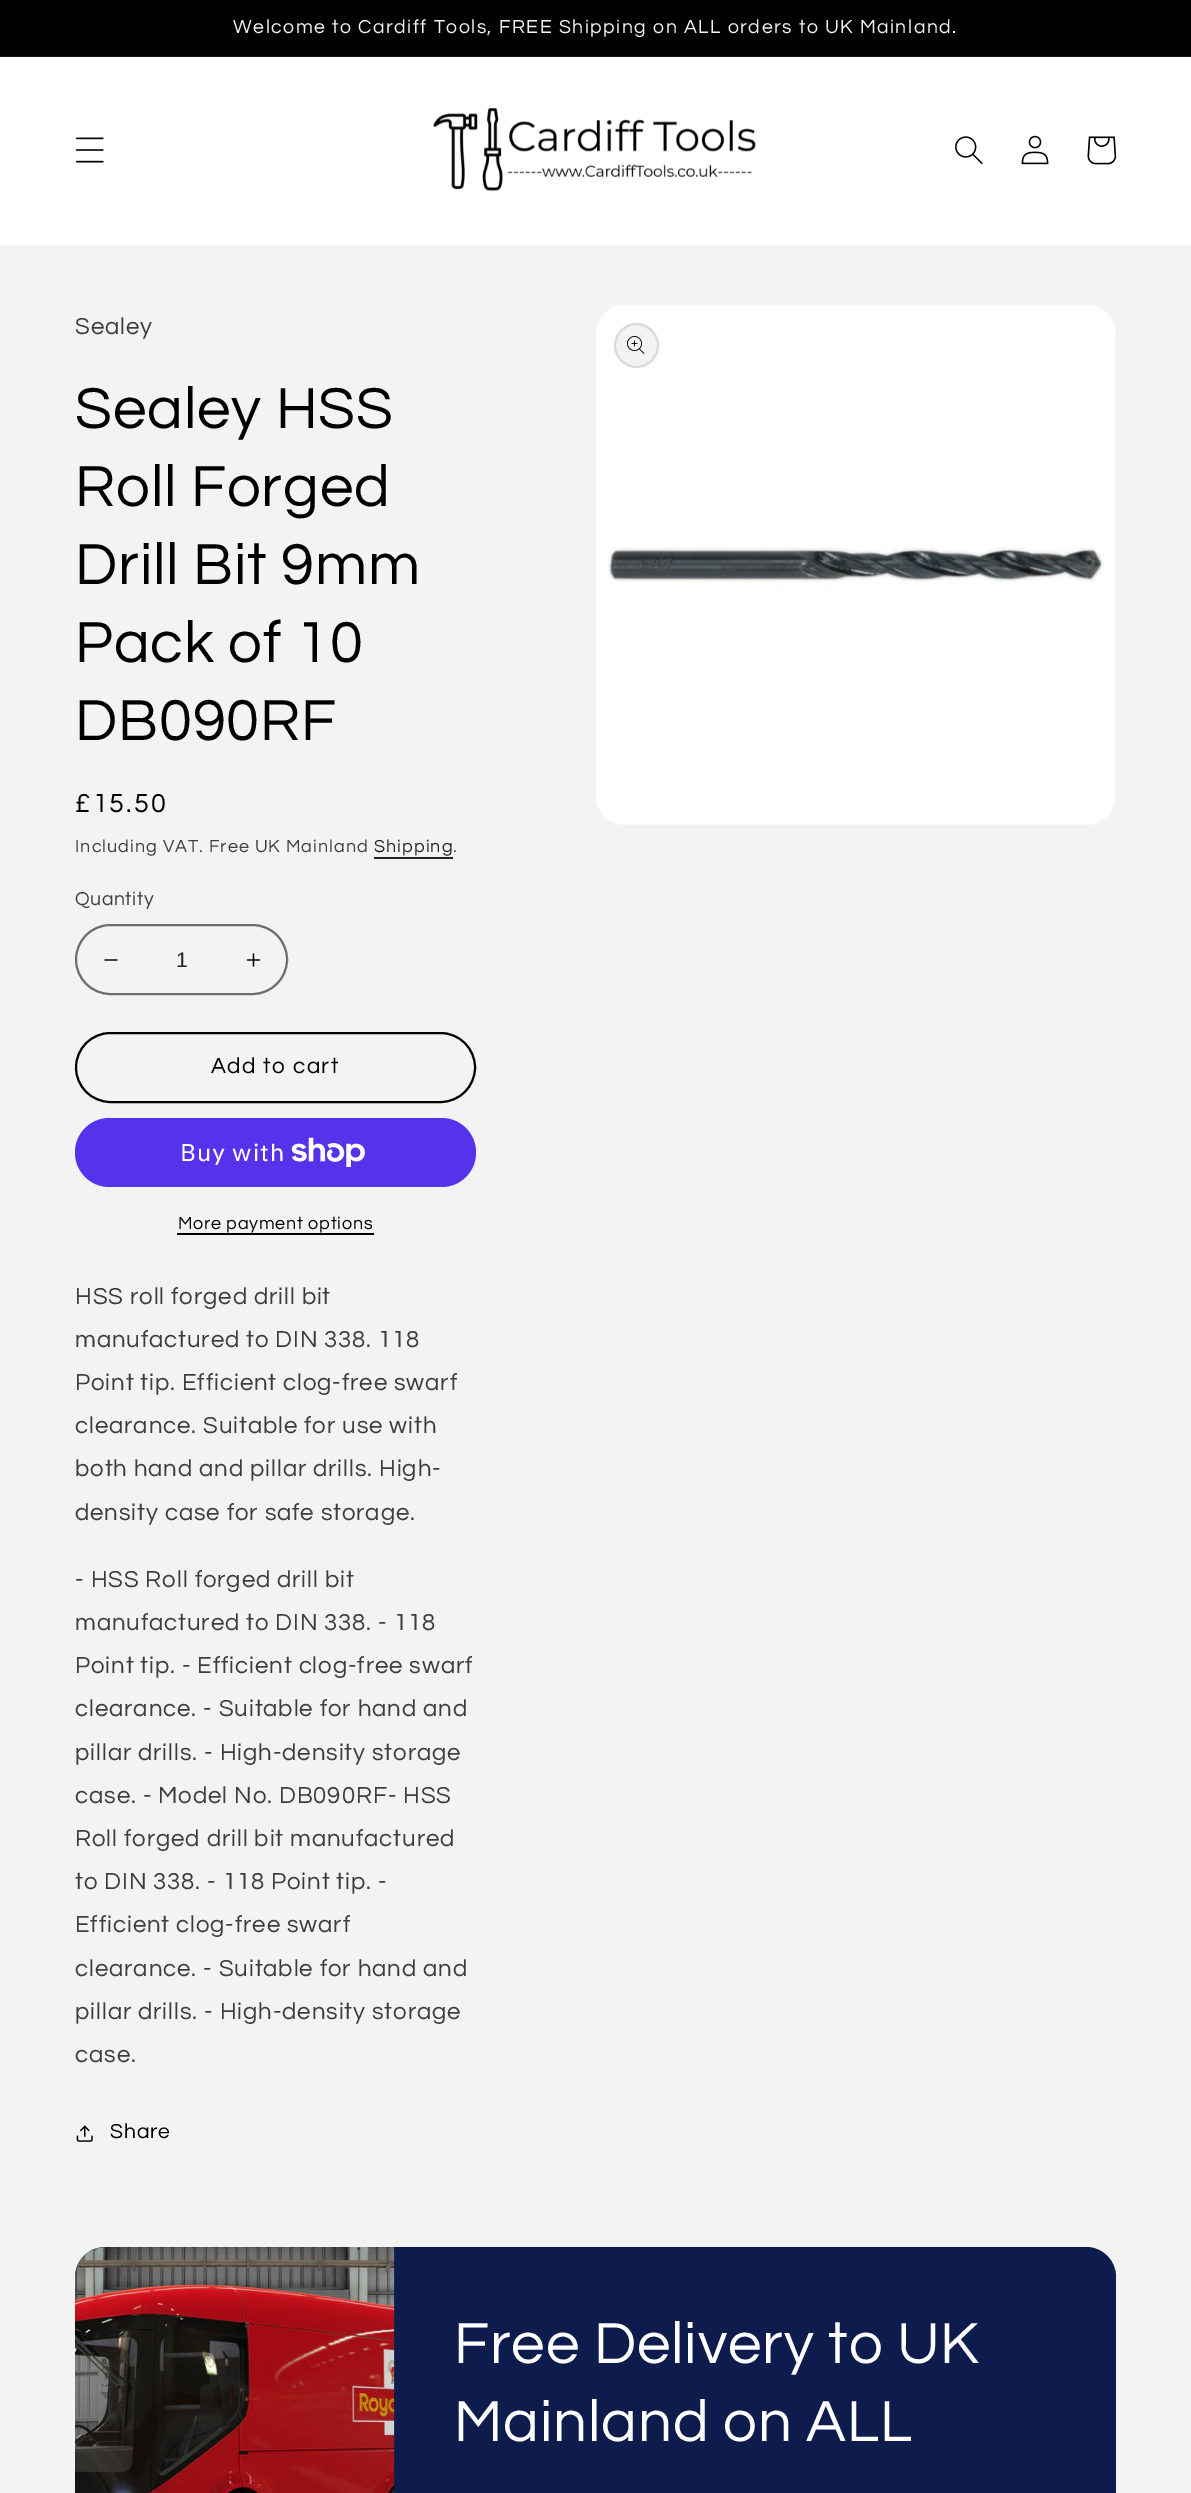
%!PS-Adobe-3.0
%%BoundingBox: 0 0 1191 2493
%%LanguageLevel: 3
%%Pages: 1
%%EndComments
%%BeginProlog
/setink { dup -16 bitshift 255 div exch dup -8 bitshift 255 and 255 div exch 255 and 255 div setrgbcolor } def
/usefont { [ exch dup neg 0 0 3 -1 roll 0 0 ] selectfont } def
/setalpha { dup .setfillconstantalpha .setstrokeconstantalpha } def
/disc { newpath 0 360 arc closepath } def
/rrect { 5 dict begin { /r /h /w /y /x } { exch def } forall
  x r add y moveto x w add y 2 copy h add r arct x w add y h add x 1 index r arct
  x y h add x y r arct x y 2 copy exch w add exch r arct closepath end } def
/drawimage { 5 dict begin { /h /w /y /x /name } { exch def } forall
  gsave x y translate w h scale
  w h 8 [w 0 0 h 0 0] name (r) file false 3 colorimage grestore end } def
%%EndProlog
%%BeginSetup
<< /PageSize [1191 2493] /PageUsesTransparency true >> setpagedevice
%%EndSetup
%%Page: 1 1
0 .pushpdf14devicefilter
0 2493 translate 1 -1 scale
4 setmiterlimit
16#F3F3F3 setink
0 0 1191 2493 rectfill
16#000000 setink
0 0 1191 56 rectfill
16#131313 setink
0 56 1191 1 rectfill
/Questrial-Regular 19.5 usefont
16#F3F3F3 setink
233 33 moveto 1.5 0 (Welcome to Cardiff Tools, FREE Shipping on ALL orders to UK Mainland.) ashow
16#FFFFFF setink
0 58 1191 187 rectfill
16#FEFEFE setink
0 57 1191 1 rectfill
(img1.raw) 75 137 29 26 drawimage
(img2.raw) 433 108 323 83 drawimage
(img3.raw) 955 136 28 28 drawimage
(img4.raw) 1021 135 28 30 drawimage
(img5.raw) 1087 136 30 29 drawimage
/Questrial-Regular 24 usefont
16#3D3D3D setink
75 334 moveto 0.9 0 (Sealey) ashow
/Questrial-Regular 60 usefont
16#000000 setink
75 428 moveto 0.9 0 (Sealey HSS) ashow
75 506 moveto 0.9 0 (Roll Forged) ashow
75 584 moveto 0.9 0 (Drill Bit 9mm) ashow
75 662 moveto 0.9 0 (Pack of 10) ashow
75 740 moveto 0.9 0 (DB090RF) ashow
/Questrial-Regular 27 usefont
75 812 moveto 2 0 (£15.50) ashow
/Questrial-Regular 18 usefont
16#3D3D3D setink
75 852 moveto 1.05 0 (Including VAT. Free UK Mainland) ashow
16#242424 setink
374 852 moveto 1.05 0 (Shipping) ashow
374 857 79 2 rectfill
16#3D3D3D setink
453 852 moveto 1.05 0 (.) ashow
/Questrial-Regular 19.5 usefont
75 905 moveto 0.5 0 (Quantity) ashow
(img6.raw) 104 959 14 2 drawimage
(img7.raw) 246 953 15 14 drawimage
16#6D6D6D setink
2 setlinewidth
76 925 211 69 34.5 rrect stroke
/LiberationSans-Regular 21 usefont
16#242424 setink
176 967 moveto (1) show
16#000000 setink
76 1033 399 69 34.5 rrect stroke
/Questrial-Regular 22.5 usefont
211 1073 moveto 1.5 0 (Add to cart) ashow
16#5433EB setink
75 1118 401 69 34.5 rrect fill
/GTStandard-Regular 24 usefont
16#FFFFFF setink
180 1161 moveto 0.9 0 (Buy with) ashow
(img8.raw) 291 1137 74 30 drawimage
/Questrial-Regular 18 usefont
16#000000 setink
178 1229 moveto 0.75 0 (More payment options) ashow
177 1233 197 2 rectfill
/Questrial-Regular 24 usefont
16#3D3D3D setink
75 1304 moveto 0.9 0 (HSS roll forged drill bit) ashow
75 1347 moveto 0.9 0 (manufactured to DIN 338. 118) ashow
75 1390 moveto 0.9 0 (Point tip. Efficient clog-free swarf) ashow
75 1433 moveto 0.9 0 (clearance. Suitable for use with) ashow
75 1476 moveto 0.9 0 (both hand and pillar drills. High-) ashow
75 1520 moveto 0.9 0 (density case for safe storage.) ashow
75 1587 moveto 0.9 0 (- HSS Roll forged drill bit) ashow
75 1630 moveto 0.9 0 (manufactured to DIN 338. - 118) ashow
75 1673 moveto 0.9 0 (Point tip. - Efficient clog-free swarf) ashow
75 1716 moveto 0.9 0 (clearance. - Suitable for hand and) ashow
75 1760 moveto 0.9 0 (pillar drills. - High-density storage) ashow
75 1803 moveto 0.9 0 (case. - Model No. DB090RF- HSS) ashow
75 1846 moveto 0.9 0 (Roll forged drill bit manufactured) ashow
75 1889 moveto 0.9 0 (to DIN 338. - 118 Point tip. -) ashow
75 1932 moveto 0.9 0 (Efficient clog-free swarf) ashow
75 1976 moveto 0.9 0 (clearance. - Suitable for hand and) ashow
75 2019 moveto 0.9 0 (pillar drills. - High-density storage) ashow
75 2062 moveto 0.9 0 (case.) ashow
(img9.raw) 76 2125 17 17 drawimage
/Questrial-Regular 21 usefont
16#000000 setink
110 2138 moveto 0.9 0 (Share) ashow
(img10.raw) 596 305 520 520 drawimage
16#F3F3F3 setink
636.5 345.5 22.5 disc fill
0.1 setalpha
16#000000 setink
636.5 345.5 21.5 disc stroke
1 setalpha
(img11.raw) 627 336 18 18 drawimage
16#0E1B4D setink
105 2247 moveto 395 2247 lineto 395 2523 lineto 105 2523 lineto 88.5 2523 75 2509.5 75 2493 curveto 75 2277 lineto 75 2260.5 88.5 2247 105 2247 curveto closepath fill
(img12.raw) 75 2247 320 246 drawimage
395 2247 moveto 1086 2247 lineto 1102.5 2247 1116 2260.5 1116 2277 curveto 1116 2493 lineto 1116 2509.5 1102.5 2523 1086 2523 curveto 395 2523 lineto closepath fill
/Questrial-Regular 60 usefont
16#FFFFFF setink
454 2363 moveto 0.9 0 (Free Delivery to UK) ashow
454 2441 moveto 0.9 0 (Mainland on ALL) ashow
.poppdf14devicefilter showpage
%%EOF
